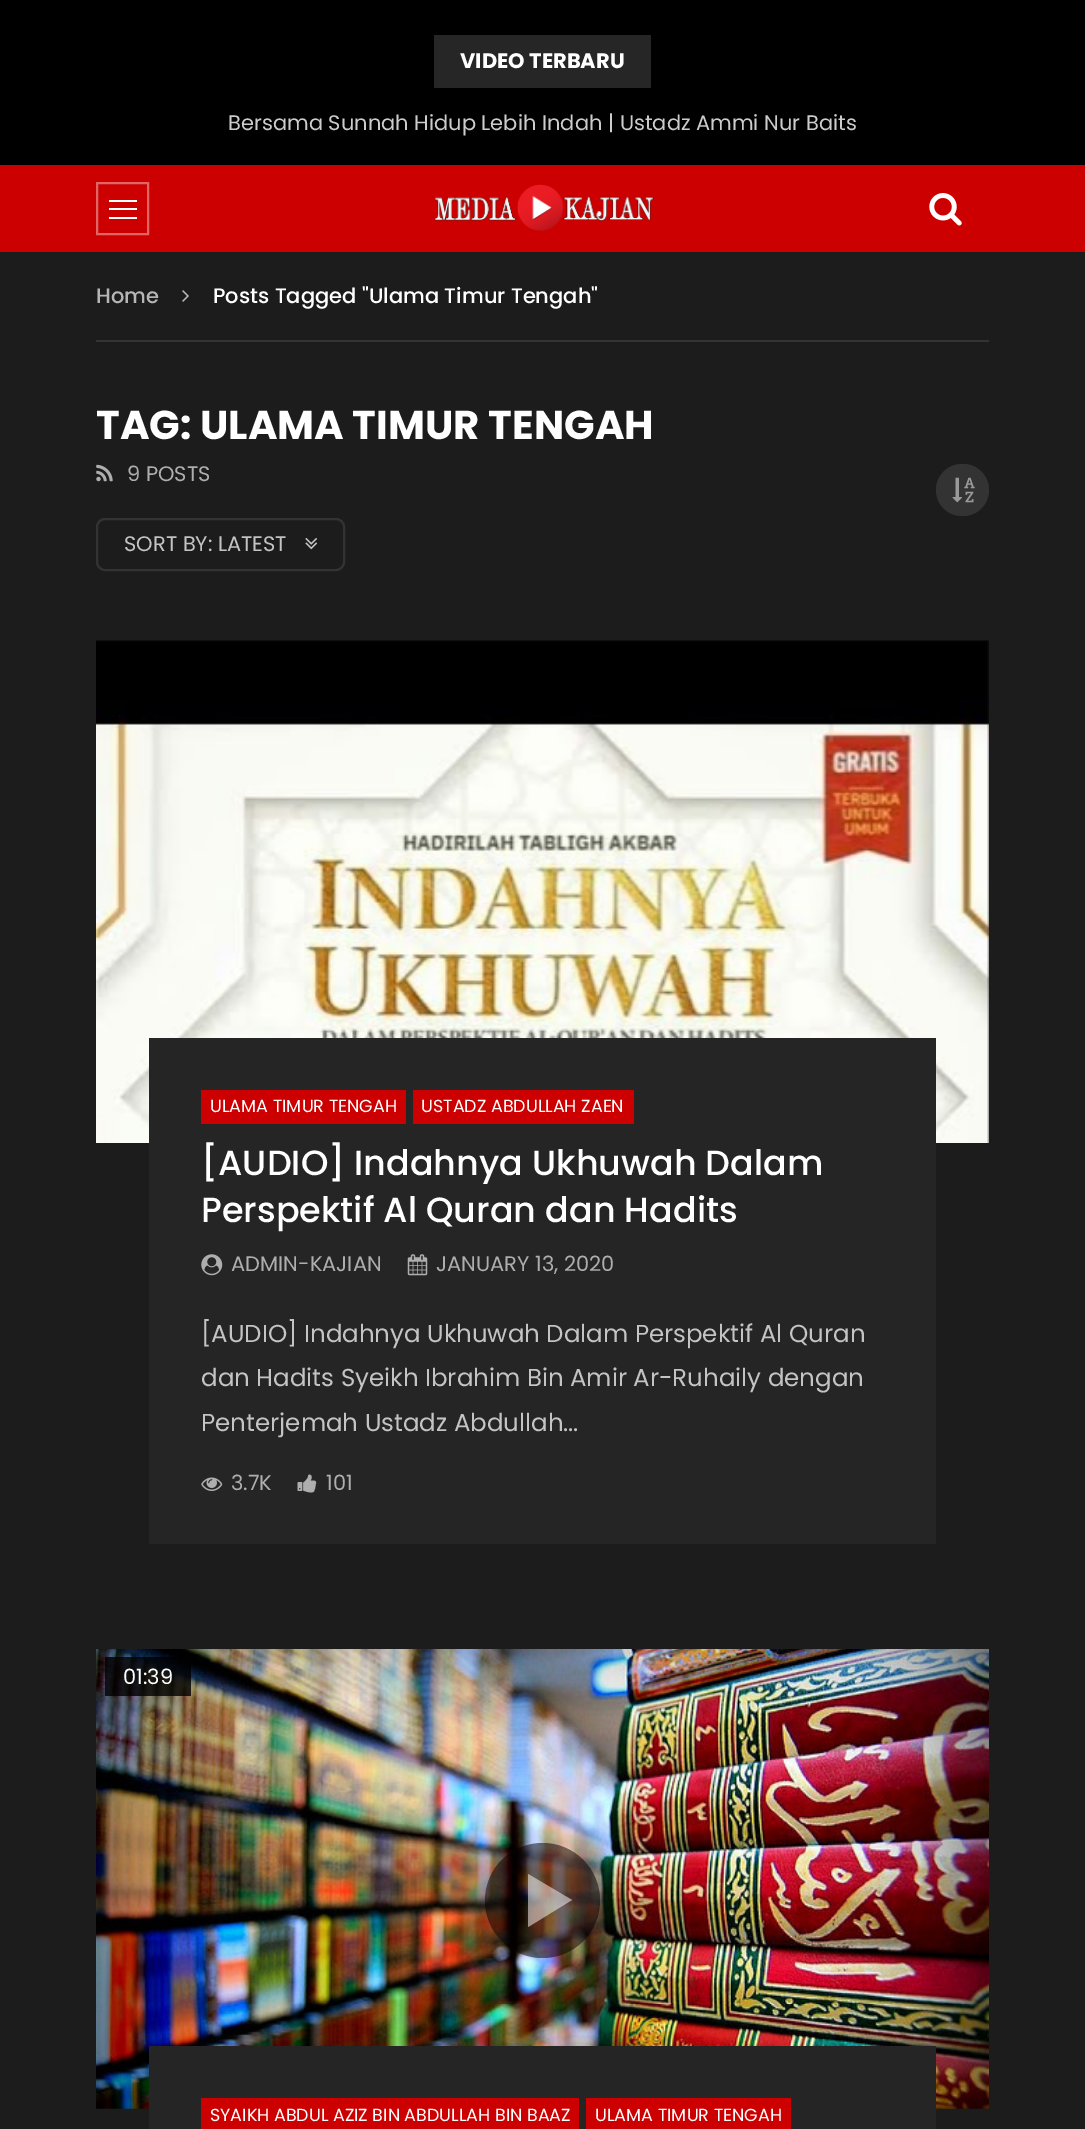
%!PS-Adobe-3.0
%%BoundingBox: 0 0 1085 2129
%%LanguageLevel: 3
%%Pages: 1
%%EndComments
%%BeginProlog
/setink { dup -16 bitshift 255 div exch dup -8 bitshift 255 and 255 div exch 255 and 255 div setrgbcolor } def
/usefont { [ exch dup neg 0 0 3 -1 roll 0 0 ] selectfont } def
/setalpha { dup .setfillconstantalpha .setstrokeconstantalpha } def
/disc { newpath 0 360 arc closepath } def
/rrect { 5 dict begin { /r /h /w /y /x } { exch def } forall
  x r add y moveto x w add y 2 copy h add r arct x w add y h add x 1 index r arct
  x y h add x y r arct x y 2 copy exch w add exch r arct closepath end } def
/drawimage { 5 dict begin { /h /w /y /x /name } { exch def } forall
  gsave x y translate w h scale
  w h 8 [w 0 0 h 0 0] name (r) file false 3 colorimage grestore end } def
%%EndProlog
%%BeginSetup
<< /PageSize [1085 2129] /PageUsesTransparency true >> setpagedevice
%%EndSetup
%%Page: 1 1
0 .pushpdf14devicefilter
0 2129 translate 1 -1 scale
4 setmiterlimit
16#1C1C1C setink
0 0 1085 2129 rectfill
16#000000 setink
0 0 1085 165 rectfill
16#262626 setink
434 35 217 53 rectfill
/Poppins-Bold 21 usefont
16#FFFFFF setink
460 68 moveto (VIDEO TERBARU) show
/Poppins-Regular 21 usefont
16#CCCCCC setink
228 130 moveto (Bersama Sunnah Hidup Lebih Indah | Ustadz Ammi Nur Baits) show
16#CC0000 setink
0 165 1085 87 rectfill
16#E06666 setink
2 setlinewidth
97 183 51 51 rectstroke
[
    [109 200 28 2 16#FFFFFF]
    [109 208 28 2 16#FFFFFF]
    [109 217 28 2 16#FFFFFF]
] { aload pop setink rectfill } forall
(img1.raw) 434 184 220 47 drawimage
(img2.raw) 929 193 33 33 drawimage
16#333333 setink
96 340 893 2 rectfill
/Poppins-Medium 21 usefont
16#B6B6B6 setink
96 303 moveto (Home) show
(img3.raw) 182 290 7 12 drawimage
16#FFFFFF setink
213 303 moveto (Posts Tagged "Ulama Timur Tengah") show
/Poppins-Bold 40.25 usefont
96 439 moveto (TAG: ULAMA TIMUR TENGAH) show
(img4.raw) 96 464 17 18 drawimage
/Poppins-Regular 21 usefont
16#AEAEAE setink
127 481 moveto (9 POSTS) show
16#333333 setink
97 519 247 51 8 rrect stroke
16#C4C4C4 setink
124 551 moveto (SORT BY: LATEST) show
(img5.raw) 305 538 12 12 drawimage
16#333333 setink
936 464 53 52 26 rrect fill
(img6.raw) 952 477 23 26 drawimage
(img7.raw) 96 640 893 503 drawimage
16#252525 setink
149 1038 787 506 rectfill
16#CC0000 setink
201 1090 205 34 rectfill
/Poppins-Regular 17.5 usefont
16#FFFFFF setink
210 1112 moveto (ULAMA TIMUR TENGAH) show
16#CC0000 setink
413 1090 221 34 rectfill
16#FFFFFF setink
421 1112 moveto (USTADZ ABDULLAH ZAEN) show
/Poppins-Medium 35 usefont
201 1175 moveto ([AUDIO] Indahnya Ukhuwah Dalam) show
201 1222 moveto (Perspektif Al Quran dan Hadits) show
(img8.raw) 201 1254 22 22 drawimage
/Poppins-Regular 21 usefont
16#AEAEAE setink
231 1271 moveto (ADMIN-KAJIAN) show
(img9.raw) 407 1254 21 22 drawimage
436 1271 moveto (JANUARY 13, 2020) show
/Poppins-Regular 24.5 usefont
16#C4C4C4 setink
[
    [([AUDIO] Indahnya Ukhuwah Dalam Perspektif Al Quran) 201 1342]
    [(dan Hadits Syeikh Ibrahim Bin Amir Ar-Ruhaily dengan) 201 1386]
    [(Penterjemah Ustadz Abdullah...) 201 1431]
] { aload pop moveto show } forall
(img10.raw) 201 1477 22 14 drawimage
/Poppins-Regular 21 usefont
16#AEAEAE setink
231 1490 moveto (3.7K) show
(img11.raw) 297 1474 20 19 drawimage
326 1490 moveto (101) show
(img12.raw) 96 1649 893 461 drawimage
0.8 setalpha
16#000000 setink
105 1657 86 39 rectfill
1 setalpha
16#FFFFFF setink
123 1684 moveto (01:39) show
0.5 setalpha
16#000000 setink
542.5 1900.5 57.5 disc fill
16#FFFFFF setink
528 1927 moveto 528 1874 lineto 572 1900 lineto closepath fill
1 setalpha
16#252525 setink
149 2046 787 83 rectfill
16#CC0000 setink
201 2098 378 31 rectfill
/Poppins-Regular 17.5 usefont
16#FFFFFF setink
210 2121 moveto (SYAIKH ABDUL AZIZ BIN ABDULLAH BIN BAAZ) show
16#CC0000 setink
586 2098 205 31 rectfill
16#FFFFFF setink
595 2121 moveto (ULAMA TIMUR TENGAH) show
.poppdf14devicefilter showpage
%%EOF
